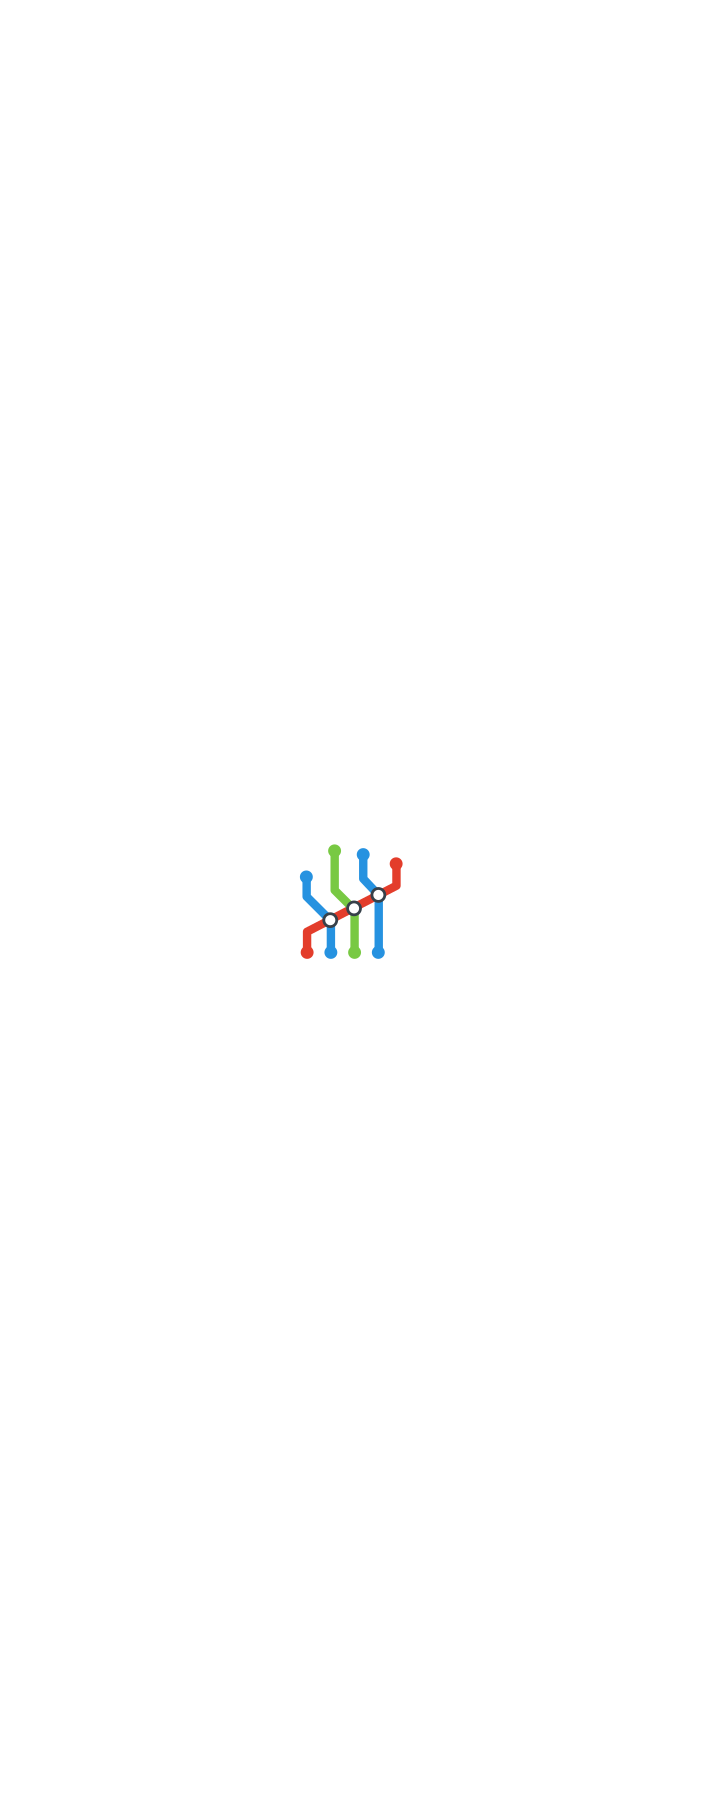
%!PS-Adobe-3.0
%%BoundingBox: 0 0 701 1807
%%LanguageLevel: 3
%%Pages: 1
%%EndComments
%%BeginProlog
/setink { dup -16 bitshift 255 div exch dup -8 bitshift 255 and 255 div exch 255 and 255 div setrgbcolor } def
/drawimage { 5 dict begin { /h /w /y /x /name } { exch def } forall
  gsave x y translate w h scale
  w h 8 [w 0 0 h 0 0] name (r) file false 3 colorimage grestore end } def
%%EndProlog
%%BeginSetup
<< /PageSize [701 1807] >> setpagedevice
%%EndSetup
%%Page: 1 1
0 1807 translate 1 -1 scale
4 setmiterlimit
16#FFFFFF setink
0 0 701 1807 rectfill
(img1.raw) 299 844 104 115 drawimage
showpage
%%EOF
